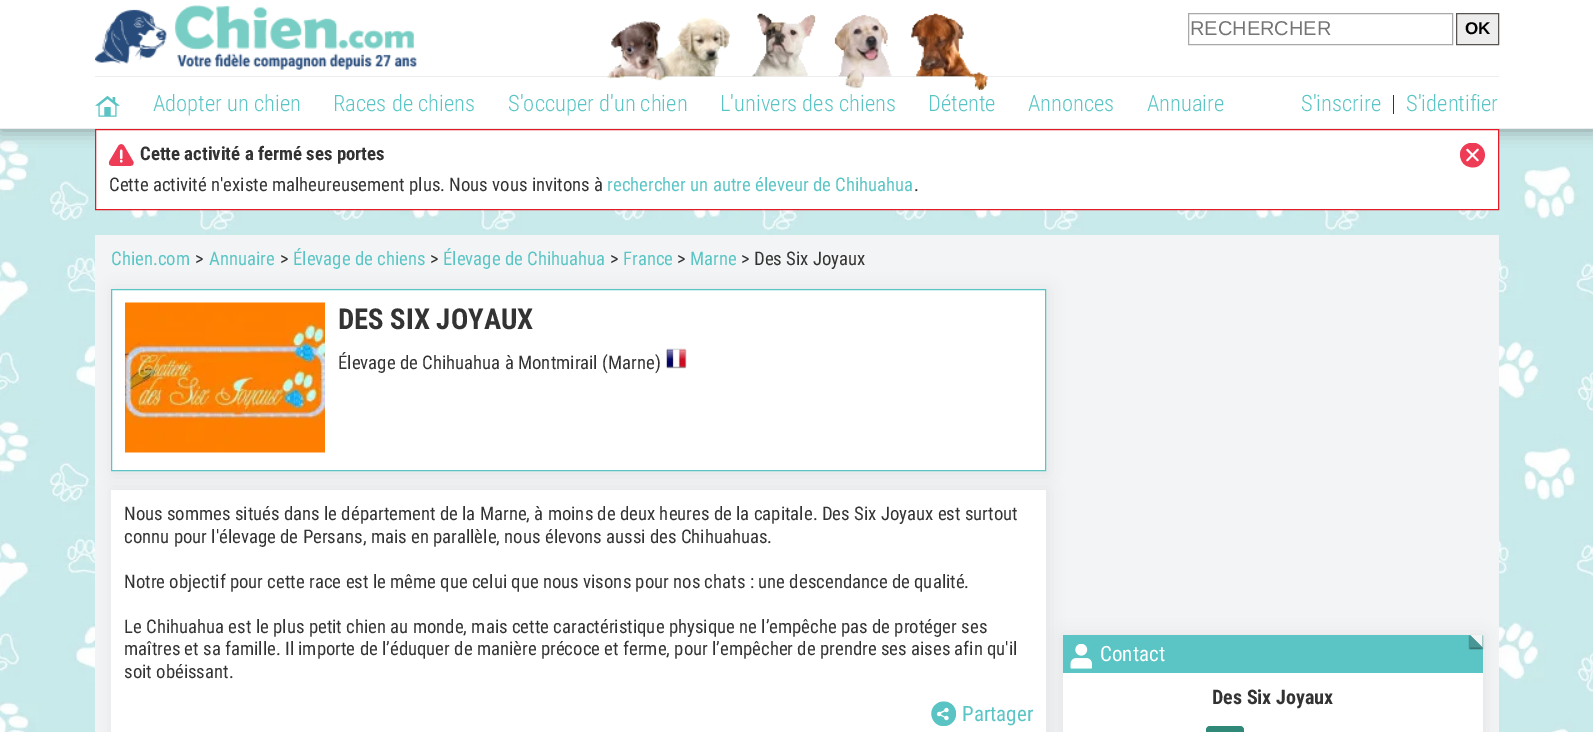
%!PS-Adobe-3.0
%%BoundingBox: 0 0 1593 732
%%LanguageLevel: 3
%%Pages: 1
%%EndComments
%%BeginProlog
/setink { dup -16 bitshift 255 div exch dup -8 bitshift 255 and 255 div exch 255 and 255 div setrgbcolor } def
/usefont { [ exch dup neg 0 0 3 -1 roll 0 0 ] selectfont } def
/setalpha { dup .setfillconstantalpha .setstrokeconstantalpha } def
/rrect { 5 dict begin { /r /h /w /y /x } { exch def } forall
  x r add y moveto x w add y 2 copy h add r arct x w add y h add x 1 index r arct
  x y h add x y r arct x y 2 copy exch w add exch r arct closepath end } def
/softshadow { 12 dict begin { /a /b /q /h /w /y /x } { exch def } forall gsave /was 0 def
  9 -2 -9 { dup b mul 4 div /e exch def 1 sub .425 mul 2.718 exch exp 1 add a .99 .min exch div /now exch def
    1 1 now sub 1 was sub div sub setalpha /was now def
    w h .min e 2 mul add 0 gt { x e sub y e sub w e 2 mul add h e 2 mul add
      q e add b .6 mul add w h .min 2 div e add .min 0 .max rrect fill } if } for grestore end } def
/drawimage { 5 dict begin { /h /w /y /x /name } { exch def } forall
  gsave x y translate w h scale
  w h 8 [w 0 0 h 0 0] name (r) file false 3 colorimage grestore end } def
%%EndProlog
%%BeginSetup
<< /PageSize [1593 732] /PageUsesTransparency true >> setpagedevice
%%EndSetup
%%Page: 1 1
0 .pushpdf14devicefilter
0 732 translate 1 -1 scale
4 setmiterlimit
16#FFFFFF setink
0 0 1593 732 rectfill
(img1.raw) 0 129 1593 603 drawimage
16#484848 setink
1 1 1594 129 0 8 0.5 softshadow
16#FFFFFF setink
0 0 1593 128 rectfill
16#ECEDED setink
0 128 1593 1 rectfill
(img2.raw) 95 5 322 65 drawimage
95 76 1404 1 rectfill
(img3.raw) 607 13 381 77 drawimage
16#A9A9A9 setink
1188.5 13.5 264 31 rectstroke
/LiberationSans-Regular 20 usefont
16#757575 setink
1190 35 moveto (RECHERCHER) show
16#EDEDED setink
1456.5 13.5 moveto 1498.5 13.5 lineto 1498.5 44.5 lineto 1456.5 44.5 lineto closepath gsave fill grestore
16#585452 setink
stroke
/LiberationSans-Bold 17 usefont
16#000000 setink
1465 34 moveto (OK) show
(img4.raw) 95 95 25 22 drawimage
/Roboto-Light 22.5 usefont
16#5BC5C5 setink
[
    [(Adopter un chien) 153 111]
    [(Races de chiens) 333 111]
    [(S'occuper d'un chien) 508 111]
    [(L'univers des chiens) 720 111]
    [(Détente) 928 111]
    [(Annonces) 1028 111]
    [(Annuaire) 1147 111]
    [(S'inscrire) 1301 111]
] { aload pop moveto show } forall
16#333333 setink
1391 111 moveto (|) show
16#5BC5C5 setink
1406 111 moveto (S'identifier) show
16#FFFFFF setink
95.5 129.5 moveto 1498.5 129.5 lineto 1498.5 209.5 lineto 95.5 209.5 lineto closepath gsave fill grestore
16#E31B26 setink
stroke
(img5.raw) 109 144 25 22 drawimage
/Roboto-Bold 18.75 usefont
16#333333 setink
140 160 moveto (Cette activité a fermé ses portes) show
(img6.raw) 1460 143 25 25 drawimage
/RobotoCondensed-Regular 18.75 usefont
109 191 moveto (Cette activité n'existe malheureusement plus. Nous vous invitons à) show
16#5BC5C5 setink
607 191 moveto (rechercher un autre éleveur de Chihuahua) show
16#333333 setink
914 191 moveto (.) show
16#F3F4F5 setink
95 235 1404 497 rectfill
16#484848 setink
113 290 935 183 0 8 0.1 softshadow
16#5BC5C5 setink
111 265 moveto (Chien.com) show
16#333333 setink
195 265 moveto (>) show
16#5BC5C5 setink
209 265 moveto (Annuaire) show
16#333333 setink
280 265 moveto (>) show
16#5BC5C5 setink
293 265 moveto (Élevage de chiens) show
16#333333 setink
430 265 moveto (>) show
16#5BC5C5 setink
443 265 moveto (Élevage de Chihuahua) show
16#333333 setink
610 265 moveto (>) show
16#5BC5C5 setink
623 265 moveto (France) show
16#333333 setink
677 265 moveto (>) show
16#5BC5C5 setink
690 265 moveto (Marne) show
16#333333 setink
741 265 moveto (> Des Six Joyaux) show
16#FFFFFF setink
111.5 289.5 moveto 1045.5 289.5 lineto 1045.5 470.5 lineto 111.5 470.5 lineto closepath gsave fill grestore
16#5BC5C5 setink
stroke
(img7.raw) 125 302 200 151 drawimage
/Roboto-Bold 28.75 usefont
16#333333 setink
338 329 moveto (DES SIX JOYAUX) show
/RobotoCondensed-Regular 18.75 usefont
338 369 moveto (Élevage de Chihuahua à Montmirail \(Marne\)) show
(img8.raw) 666 348 21 21 drawimage
16#484848 setink
113 491 935 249 0 8 0.1 softshadow
16#FFFFFF setink
111 490 935 242 rectfill
16#333333 setink
[
    [(Nous sommes situés dans le département de la Marne, à moins de deux heures de la capitale. Des Six Joyaux est surtout) 124 520]
    [(connu pour l'élevage de Persans, mais en parallèle, nous élevons aussi des Chihuahuas.) 124 543]
    [(Notre objectif pour cette race est le même que celui que nous visons pour nos chats : une descendance de qualité.) 124 588]
    [(Le Chihuahua est le plus petit chien au monde, mais cette caractéristique physique ne l’empêche pas de protéger ses) 124 633]
    [(maîtres et sa famille. Il importe de l’éduquer de manière précoce et ferme, pour l’empêcher de prendre ses aises afin qu'il) 124 655]
    [(soit obéissant.) 124 678]
] { aload pop moveto show } forall
(img9.raw) 931 701 25 25 drawimage
/RobotoCondensed-Regular 21 usefont
16#5BC5C5 setink
962 721 moveto (Partager) show
16#484848 setink
1064 636 420 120 0 8 0.1 softshadow
16#FFFFFF setink
1063 673 420 59 rectfill
16#5BC5C5 setink
1063 635 420 38 rectfill
(img10.raw) 1070 644 22 25 drawimage
16#FFFFFF setink
1100 661 moveto (Contact) show
16#000000 setink
1469 636 12 13 0 0.5 0.2 softshadow
1470 636 13 13 0 0.5 0.3 softshadow
16#F3F4F5 setink
1482.5 635 moveto 1482.5 647.5 lineto 1470 635 lineto closepath fill
16#499696 setink
1482.5 647.5 moveto 1470 647.5 lineto 1470 635 lineto closepath fill
/Roboto-Bold 20 usefont
16#333333 setink
1212 704 moveto (Des Six Joyaux) show
16#308978 setink
1206 726 38 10 4 rrect fill
.poppdf14devicefilter showpage
%%EOF
